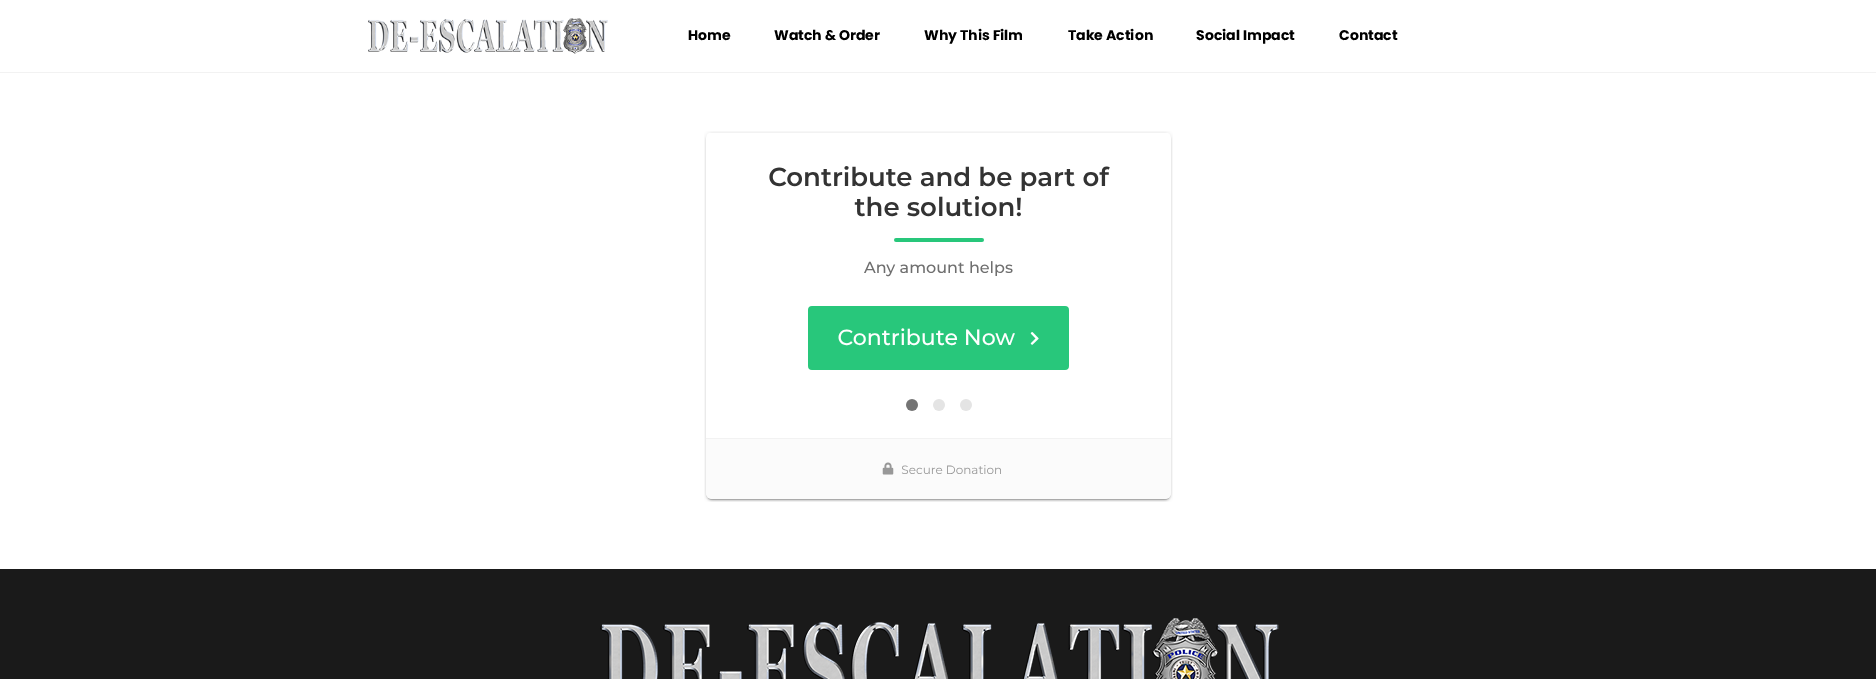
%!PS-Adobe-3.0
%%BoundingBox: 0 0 1876 679
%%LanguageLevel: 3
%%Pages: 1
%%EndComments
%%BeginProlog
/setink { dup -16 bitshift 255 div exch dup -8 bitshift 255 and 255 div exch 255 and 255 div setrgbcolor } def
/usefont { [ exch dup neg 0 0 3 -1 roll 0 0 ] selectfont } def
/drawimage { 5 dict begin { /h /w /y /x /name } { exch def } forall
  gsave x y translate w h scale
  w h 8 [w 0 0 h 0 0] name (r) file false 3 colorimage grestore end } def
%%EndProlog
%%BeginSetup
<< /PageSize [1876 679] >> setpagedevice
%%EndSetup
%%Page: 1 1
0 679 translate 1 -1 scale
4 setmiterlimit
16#FFFFFF setink
0 0 1876 679 rectfill
16#F2F2F2 setink
0 72 1876 1 rectfill
(img1.raw) 368 18 240 36 drawimage
/Poppins-Bold 14 usefont
16#000000 setink
[
    [(Home) 688 40]
    [(Watch & Order) 774 40]
    [(Why This Film) 924 40]
    [(Take Action) 1068 40]
    [(Social Impact) 1196 40]
    [(Contact) 1339 40]
] { aload pop moveto show } forall
(img2.raw) 704 131 469 371 drawimage
16#1A1A1A setink
0 569 1876 110 rectfill
(img3.raw) 600 618 679 61 drawimage
showpage
%%EOF
